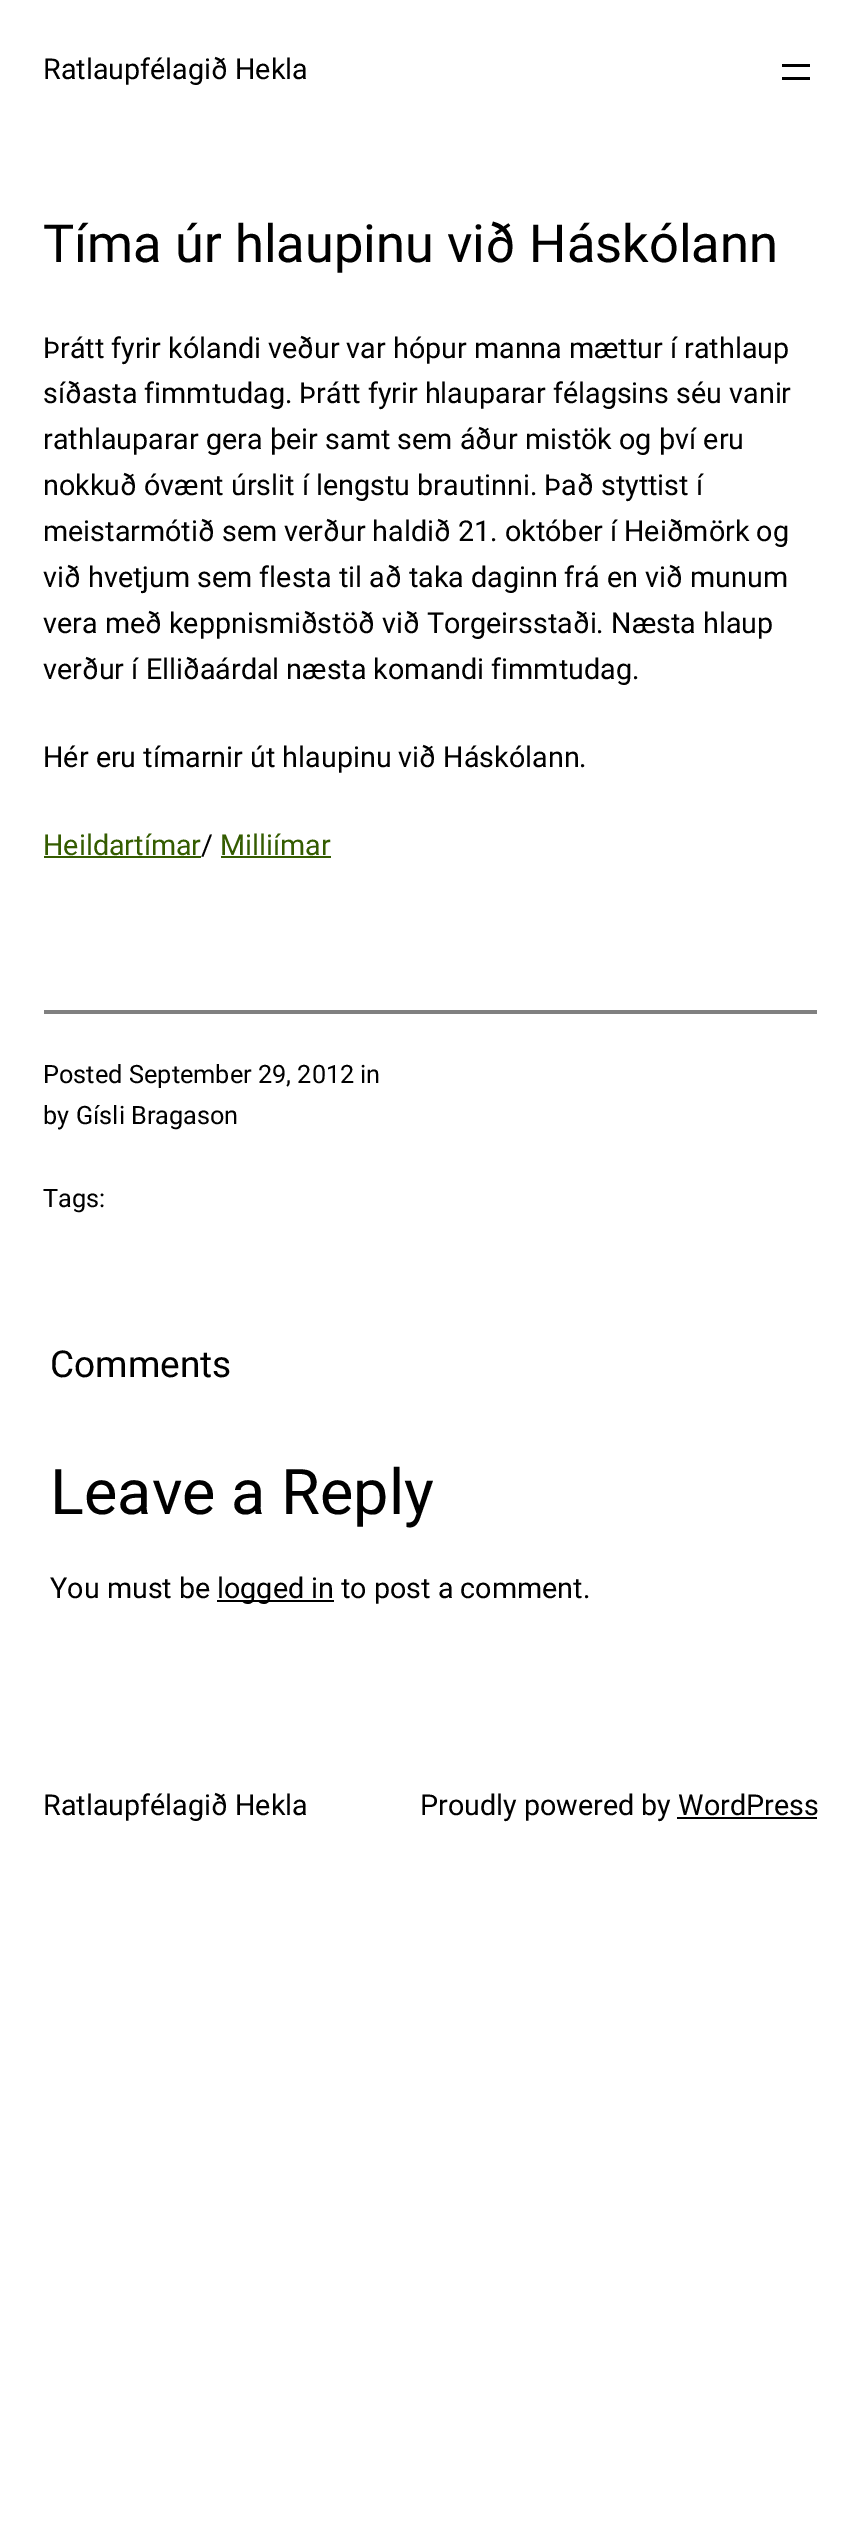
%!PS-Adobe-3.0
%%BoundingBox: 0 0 861 2525
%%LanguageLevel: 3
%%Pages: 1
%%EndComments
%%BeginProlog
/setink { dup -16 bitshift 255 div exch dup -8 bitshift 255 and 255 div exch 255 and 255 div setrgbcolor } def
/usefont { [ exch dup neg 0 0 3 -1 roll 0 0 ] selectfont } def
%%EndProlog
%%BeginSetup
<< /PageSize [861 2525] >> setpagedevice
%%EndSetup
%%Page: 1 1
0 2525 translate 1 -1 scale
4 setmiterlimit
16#FFFFFF setink
0 0 861 2525 rectfill
/Roboto-Regular 28.7 usefont
16#000000 setink
43 79 moveto (Ratlaupfélagið Hekla) show
782 64 28 3 rectfill
782 77 28 3 rectfill
/Roboto-Regular 52.5 usefont
43 262 moveto (Tíma úr hlaupinu við Háskólann) show
/Roboto-Regular 28.7 usefont
[
    [(Þrátt fyrir kólandi veður var hópur manna mættur í rathlaup) 43 358]
    [(síðasta fimmtudag. Þrátt fyrir hlauparar félagsins séu vanir) 43 403]
    [(rathlauparar gera þeir samt sem áður mistök og því eru) 43 449]
    [(nokkuð óvænt úrslit í lengstu brautinni. Það styttist í) 43 495]
    [(meistarmótið sem verður haldið 21. október í Heiðmörk og) 43 541]
    [(við hvetjum sem flesta til að taka daginn frá en við munum) 43 587]
    [(vera með keppnismiðstöð við Torgeirsstaði. Næsta hlaup) 43 633]
    [(verður í Elliðaárdal næsta komandi fimmtudag.) 43 679]
    [(Hér eru tímarnir út hlaupinu við Háskólann.) 43 767]
] { aload pop moveto show } forall
16#345C00 setink
43 855 moveto (Heildartímar) show
44 856 157 2 rectfill
16#000000 setink
201 855 moveto (/) show
16#345C00 setink
220 855 moveto (Milliímar) show
221 856 110 2 rectfill
16#808080 setink
44 1010 773 4 rectfill
/Roboto-Regular 25.25 usefont
16#000000 setink
[
    [(Posted) 43 1083]
    [(September 29, 2012) 129 1083]
    [(in) 360 1083]
    [(by) 43 1124]
    [(Gísli Bragason) 76 1124]
    [(Tags:) 43 1207]
] { aload pop moveto show } forall
/Roboto-Regular 37 usefont
50 1377 moveto (Comments) show
/Roboto-Regular 63 usefont
50 1514 moveto (Leave a Reply) show
/Roboto-Regular 28.7 usefont
50 1598 moveto (You must be) show
217 1600 117 2 rectfill
[
    [(logged in to post a comment.) 217 1598]
    [(Ratlaupfélagið Hekla) 43 1815]
    [(Proudly powered by WordPress) 420 1815]
] { aload pop moveto show } forall
677 1817 140 2 rectfill
showpage
%%EOF
